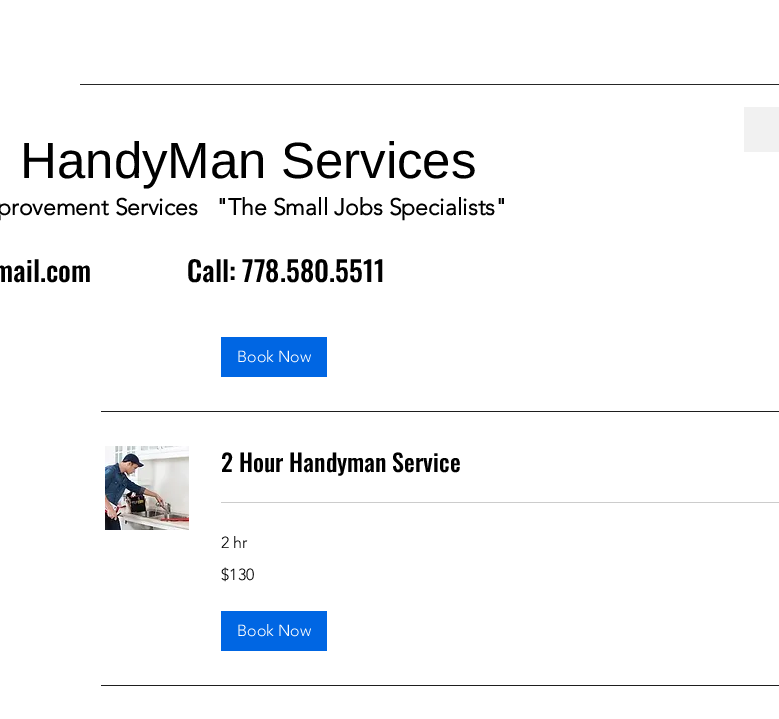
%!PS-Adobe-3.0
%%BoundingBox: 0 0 779 719
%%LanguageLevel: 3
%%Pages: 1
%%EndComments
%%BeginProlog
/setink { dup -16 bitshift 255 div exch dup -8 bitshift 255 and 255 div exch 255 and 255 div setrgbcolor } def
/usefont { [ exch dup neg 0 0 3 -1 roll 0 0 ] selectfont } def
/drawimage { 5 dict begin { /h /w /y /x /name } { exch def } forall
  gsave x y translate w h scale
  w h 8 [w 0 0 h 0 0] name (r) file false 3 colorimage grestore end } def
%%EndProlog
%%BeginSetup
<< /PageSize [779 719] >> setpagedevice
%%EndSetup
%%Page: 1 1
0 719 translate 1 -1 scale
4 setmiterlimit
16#FFFFFF setink
0 0 779 719 rectfill
16#262626 setink
80 84 699 1 rectfill
16#F1F1F1 setink
744 107 35 45 rectfill
/LiberationSans-Regular 51 usefont
16#000000 setink
20 178 moveto (HandyMan Services) show
/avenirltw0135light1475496-Bold 23 usefont
-3 215 moveto (provement Services) show
216 215 moveto ("The Small Jobs Specialists") show
/Oswald-Medium 28 usefont
-7 282 moveto (mail.com) show
187 282 moveto (Call: 778.580.5511) show
16#0066E3 setink
221 337 106 40 rectfill
/avenirltw0135light1475496-Light 16 usefont
16#FFFFFF setink
237 362 moveto (Book Now) show
16#1E1E1E setink
101 411 678 1 rectfill
(img1.raw) 105 446 84 84 drawimage
/Oswald-Medium 24 usefont
16#000000 setink
221 472 moveto (2 Hour Handyman Service) show
16#CCCCCC setink
221 502 558 1 rectfill
/avenirltw0135light1475496-Light 16 usefont
16#000000 setink
221 548 moveto (2 hr) show
221 580 moveto ($130) show
16#0066E3 setink
221 611 106 40 rectfill
16#FFFFFF setink
237 636 moveto (Book Now) show
16#1E1E1E setink
101 685 678 1 rectfill
showpage
%%EOF
